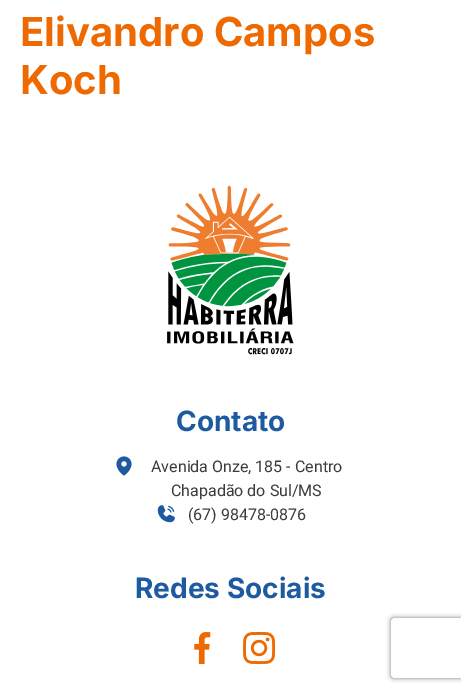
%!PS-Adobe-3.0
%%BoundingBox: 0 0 461 692
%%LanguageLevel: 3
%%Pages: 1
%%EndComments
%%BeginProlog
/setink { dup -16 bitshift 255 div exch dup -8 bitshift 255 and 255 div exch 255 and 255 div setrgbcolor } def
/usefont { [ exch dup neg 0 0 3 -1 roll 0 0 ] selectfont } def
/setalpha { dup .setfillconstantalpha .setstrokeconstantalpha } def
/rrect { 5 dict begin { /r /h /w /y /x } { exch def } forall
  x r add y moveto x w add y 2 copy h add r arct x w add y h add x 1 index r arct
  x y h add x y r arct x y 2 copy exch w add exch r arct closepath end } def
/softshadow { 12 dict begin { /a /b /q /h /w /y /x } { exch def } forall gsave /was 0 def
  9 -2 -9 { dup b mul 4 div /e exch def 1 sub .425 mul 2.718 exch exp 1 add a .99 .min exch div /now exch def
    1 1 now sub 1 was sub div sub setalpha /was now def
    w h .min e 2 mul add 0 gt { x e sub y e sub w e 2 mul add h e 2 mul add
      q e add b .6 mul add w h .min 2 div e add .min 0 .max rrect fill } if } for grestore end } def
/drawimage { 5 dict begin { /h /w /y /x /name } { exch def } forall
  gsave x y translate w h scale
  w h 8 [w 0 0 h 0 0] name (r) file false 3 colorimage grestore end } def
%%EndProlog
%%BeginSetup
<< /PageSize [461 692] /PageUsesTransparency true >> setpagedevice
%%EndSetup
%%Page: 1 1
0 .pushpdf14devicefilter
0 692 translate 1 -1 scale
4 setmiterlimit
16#FFFFFF setink
0 0 461 692 rectfill
/Inter-Bold 40 usefont
16#EE6900 setink
20 46 moveto (Elivandro Campos) show
20 94 moveto (Koch) show
(img1.raw) 167 185 127 170 drawimage
/Inter-Bold 28 usefont
16#1D5A9F setink
176 431 moveto (Contato) show
(img2.raw) 116 456 16 20 drawimage
/Roboto-Regular 16 usefont
16#3B3B3B setink
151 472 moveto (Avenida Onze, 185 - Centro) show
171 496 moveto (Chapadão do Sul/MS) show
(img3.raw) 157 505 18 18 drawimage
188 520 moveto (\(67\) 98478-0876) show
/Inter-Bold 28 usefont
16#1D5A9F setink
135 598 moveto (Redes Sociais) show
(img4.raw) 194 632 17 32 drawimage
(img5.raw) 243 632 32 32 drawimage
gsave
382 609 moveto 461 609 lineto 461 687 lineto 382 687 lineto closepath 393 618 moveto 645 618 lineto 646 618 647 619 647 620 curveto 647 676 lineto 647 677 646 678 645 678 curveto 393 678 lineto 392 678 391 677 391 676 curveto 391 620 lineto 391 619 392 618 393 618 curveto closepath eoclip newpath
16#808080 setink
391 618 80 60 2 2.5 1 softshadow
grestore
.poppdf14devicefilter showpage
%%EOF
